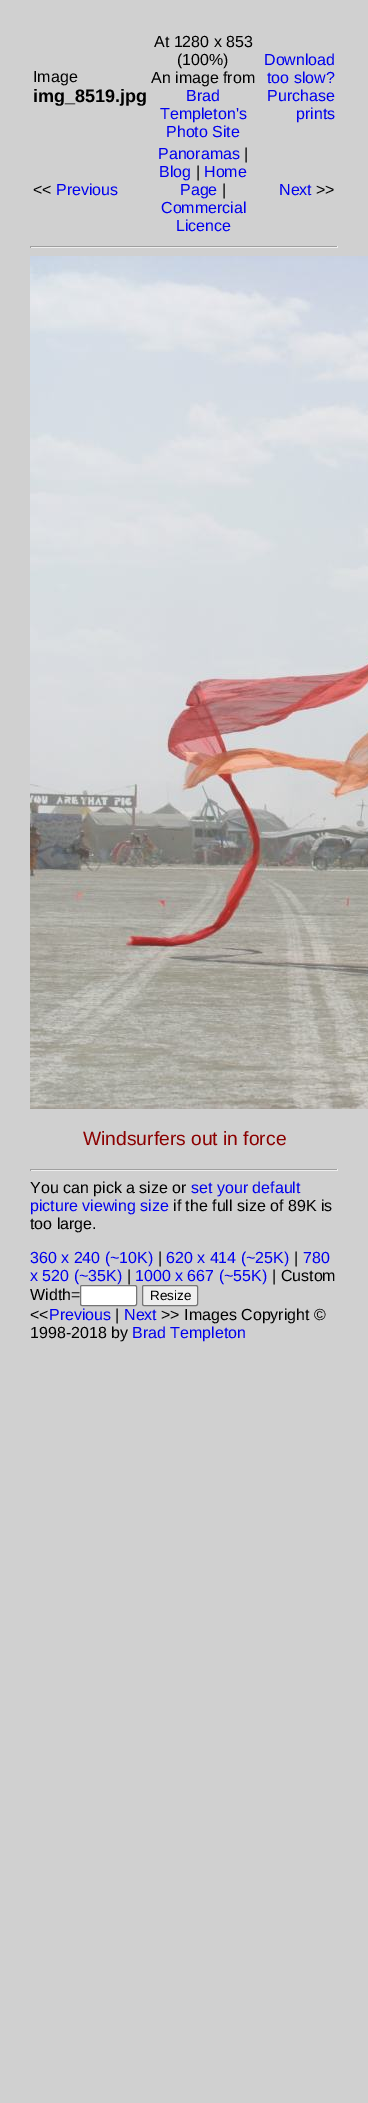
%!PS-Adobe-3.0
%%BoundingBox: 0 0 368 2103
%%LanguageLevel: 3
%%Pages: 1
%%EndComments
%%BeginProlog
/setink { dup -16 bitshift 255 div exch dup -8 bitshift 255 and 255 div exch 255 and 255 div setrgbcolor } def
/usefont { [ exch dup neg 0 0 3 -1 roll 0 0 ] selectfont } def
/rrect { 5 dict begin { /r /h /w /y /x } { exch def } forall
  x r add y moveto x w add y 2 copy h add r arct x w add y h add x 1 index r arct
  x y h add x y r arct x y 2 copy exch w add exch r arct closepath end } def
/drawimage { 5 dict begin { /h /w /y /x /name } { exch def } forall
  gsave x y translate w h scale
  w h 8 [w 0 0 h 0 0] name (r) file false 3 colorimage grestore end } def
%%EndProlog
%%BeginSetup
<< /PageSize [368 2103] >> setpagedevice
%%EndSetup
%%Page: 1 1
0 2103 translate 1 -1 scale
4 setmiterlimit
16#D0D0D0 setink
0 0 368 2103 rectfill
/LiberationSans-Regular 16 usefont
16#000000 setink
33 82 moveto (Image) show
/LiberationSans-Bold 18 usefont
33 102 moveto (img_8519.jpg) show
/LiberationSans-Regular 16 usefont
[
    [(At 1280 x 853) 154 47]
    [(\(100%\)) 177 65]
    [(An image from) 151 83]
] { aload pop moveto show } forall
16#0000EE setink
[
    [(Brad) 186 101]
    [(Templeton's) 160 119]
    [(Photo Site) 166 137]
    [(Download) 264 65]
    [(too slow?) 267 83]
    [(Purchase) 267 101]
    [(prints) 296 119]
] { aload pop moveto show } forall
16#000000 setink
33 195 moveto (<<) show
16#0000EE setink
56 195 moveto (Previous) show
158 159 moveto (Panoramas) show
16#000000 setink
244 159 moveto (|) show
16#0000EE setink
159 177 moveto (Blog) show
16#000000 setink
196 177 moveto (|) show
16#0000EE setink
204 177 moveto (Home) show
180 195 moveto (Page) show
16#000000 setink
222 195 moveto (|) show
16#0000EE setink
[
    [(Commercial) 161 213]
    [(Licence) 176 231]
    [(Next) 279 195]
] { aload pop moveto show } forall
16#000000 setink
316 195 moveto (>>) show
[
    [30 246 308 1 16#9F9F9F]
    [337 246 1 2 16#EEEEEE]
    [30 247 308 1 16#EEEEEE]
    [30 246 1 2 16#9F9F9F]
] { aload pop setink rectfill } forall
(img1.raw) 30 256 338 853 drawimage
/LiberationSans-Regular 19.25 usefont
16#8B0000 setink
83 1145 moveto (Windsurfers out in force) show
[
    [30 1169 308 1 16#9F9F9F]
    [337 1169 1 2 16#EEEEEE]
    [30 1170 308 1 16#EEEEEE]
    [30 1169 1 2 16#9F9F9F]
] { aload pop setink rectfill } forall
/LiberationSans-Regular 16 usefont
16#000000 setink
30 1193 moveto (You can pick a size or) show
16#0000EE setink
191 1193 moveto (set your default) show
30 1211 moveto (picture viewing size) show
16#000000 setink
173 1211 moveto (if the full size of 89K is) show
30 1229 moveto (too large.) show
16#0000EE setink
30 1263 moveto (360 x 240 \(~10K\)) show
16#000000 setink
158 1263 moveto (|) show
16#0000EE setink
166 1263 moveto (620 x 414 \(~25K\)) show
16#000000 setink
294 1263 moveto (|) show
16#0000EE setink
303 1263 moveto (780) show
30 1281 moveto (x 520 \(~35K\)) show
16#000000 setink
127 1281 moveto (|) show
16#0000EE setink
135 1281 moveto (1000 x 667 \(~55K\)) show
16#000000 setink
272 1281 moveto (| Custom) show
30 1300 moveto (Width=) show
16#FFFFFF setink
80.5 1285.5 56 20 1.5 rrect gsave fill grestore
16#767676 setink
stroke
16#EFEFEF setink
142.5 1285.5 55 20 1.5 rrect gsave fill grestore
16#767676 setink
stroke
/LiberationSans-Regular 13.5 usefont
16#000000 setink
150 1300 moveto (Resize) show
/LiberationSans-Regular 16 usefont
30 1320 moveto (<<) show
16#0000EE setink
49 1320 moveto (Previous) show
16#000000 setink
115 1320 moveto (|) show
16#0000EE setink
124 1320 moveto (Next) show
16#000000 setink
161 1320 moveto (>> Images Copyright ©) show
30 1338 moveto (1998-2018 by) show
16#0000EE setink
132 1338 moveto (Brad Templeton) show
showpage
%%EOF
